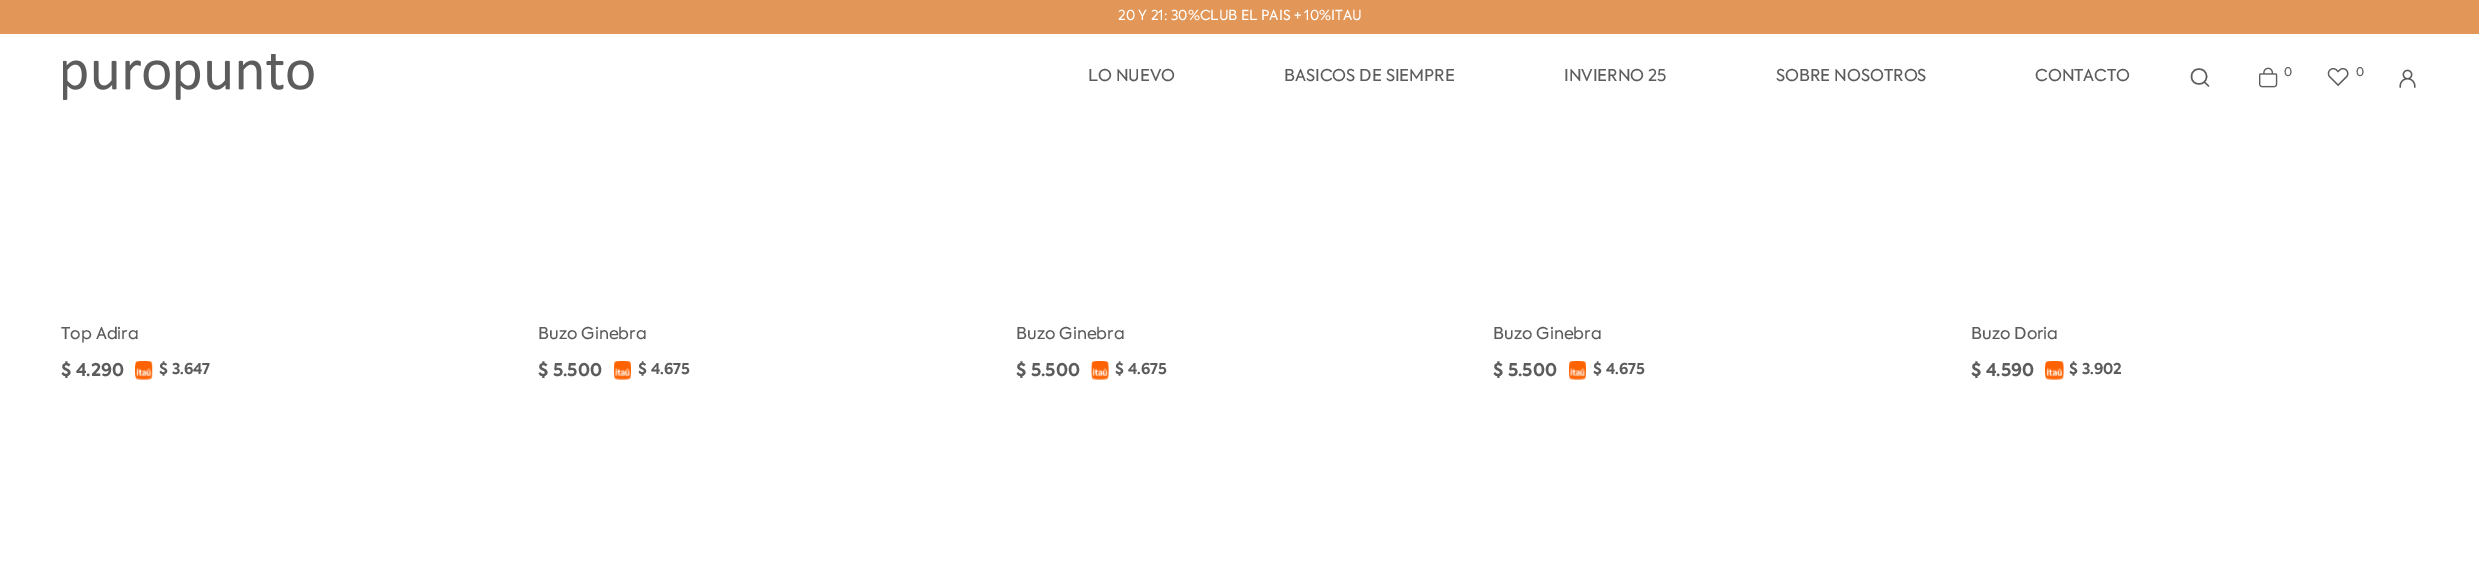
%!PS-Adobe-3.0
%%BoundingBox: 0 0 2479 587
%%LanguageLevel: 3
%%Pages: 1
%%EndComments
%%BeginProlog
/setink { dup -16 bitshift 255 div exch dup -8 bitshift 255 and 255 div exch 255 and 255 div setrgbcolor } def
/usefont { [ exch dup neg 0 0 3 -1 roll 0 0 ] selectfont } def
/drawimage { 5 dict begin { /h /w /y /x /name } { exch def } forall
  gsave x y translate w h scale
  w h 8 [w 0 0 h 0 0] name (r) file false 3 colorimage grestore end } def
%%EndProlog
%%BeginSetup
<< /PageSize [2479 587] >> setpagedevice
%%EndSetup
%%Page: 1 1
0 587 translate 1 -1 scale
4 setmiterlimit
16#FFFFFF setink
0 0 2479 587 rectfill
16#E29657 setink
0 0 2479 34 rectfill
/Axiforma-Regular 13.75 usefont
16#FFFFFF setink
1118 20 moveto (20 Y 21: 30%CLUB EL PAIS + 10%ITAU) show
(img1.raw) 63 54 251 46 drawimage
/Axiforma-Regular 16.25 usefont
16#5C5C5C setink
[
    [(LO NUEVO) 1088 81]
    [(BASICOS DE SIEMPRE) 1284 81]
    [(INVIERNO 25) 1564 81]
    [(SOBRE NOSOTROS) 1776 81]
    [(CONTACTO) 2035 81]
] { aload pop moveto show } forall
1.4 setlinewidth
1 setlinecap
1 setlinejoin
2204.5 82 moveto 2208.5 86 lineto 2191.5 76.5 moveto 2191.5 86.5 2206.5 86.5 2206.5 76.5 curveto 2206.5 66.5 2191.5 66.5 2191.5 76.5 curveto closepath stroke
(img2.raw) 2259 67 19 21 drawimage
/Axiforma-Regular 12 usefont
2284 76 moveto (0) show
(img3.raw) 2327 68 22 19 drawimage
2356 76 moveto (0) show
(img4.raw) 2399 69 17 19 drawimage
/Axiforma-Regular 16.25 usefont
61 339 moveto (Top Adira) show
/Axiforma-Bold 17.5 usefont
61 376 moveto ($ 4.290) show
(img5.raw) 135 361 18 19 drawimage
/Axiforma-Bold 15 usefont
159 374 moveto ($ 3.647) show
/Axiforma-Regular 16.25 usefont
538 339 moveto (Buzo Ginebra) show
/Axiforma-Bold 17.5 usefont
538 376 moveto ($ 5.500) show
(img6.raw) 614 361 17 19 drawimage
/Axiforma-Bold 15 usefont
638 374 moveto ($ 4.675) show
/Axiforma-Regular 16.25 usefont
1016 339 moveto (Buzo Ginebra) show
/Axiforma-Bold 17.5 usefont
1016 376 moveto ($ 5.500) show
(img7.raw) 1091 361 18 19 drawimage
/Axiforma-Bold 15 usefont
1115 374 moveto ($ 4.675) show
/Axiforma-Regular 16.25 usefont
1493 339 moveto (Buzo Ginebra) show
/Axiforma-Bold 17.5 usefont
1493 376 moveto ($ 5.500) show
(img6.raw) 1569 361 17 19 drawimage
/Axiforma-Bold 15 usefont
1593 374 moveto ($ 4.675) show
/Axiforma-Regular 16.25 usefont
1971 339 moveto (Buzo Doria) show
/Axiforma-Bold 17.5 usefont
1971 376 moveto ($ 4.590) show
(img8.raw) 2045 361 19 19 drawimage
/Axiforma-Bold 15 usefont
2069 374 moveto ($ 3.902) show
showpage
%%EOF
